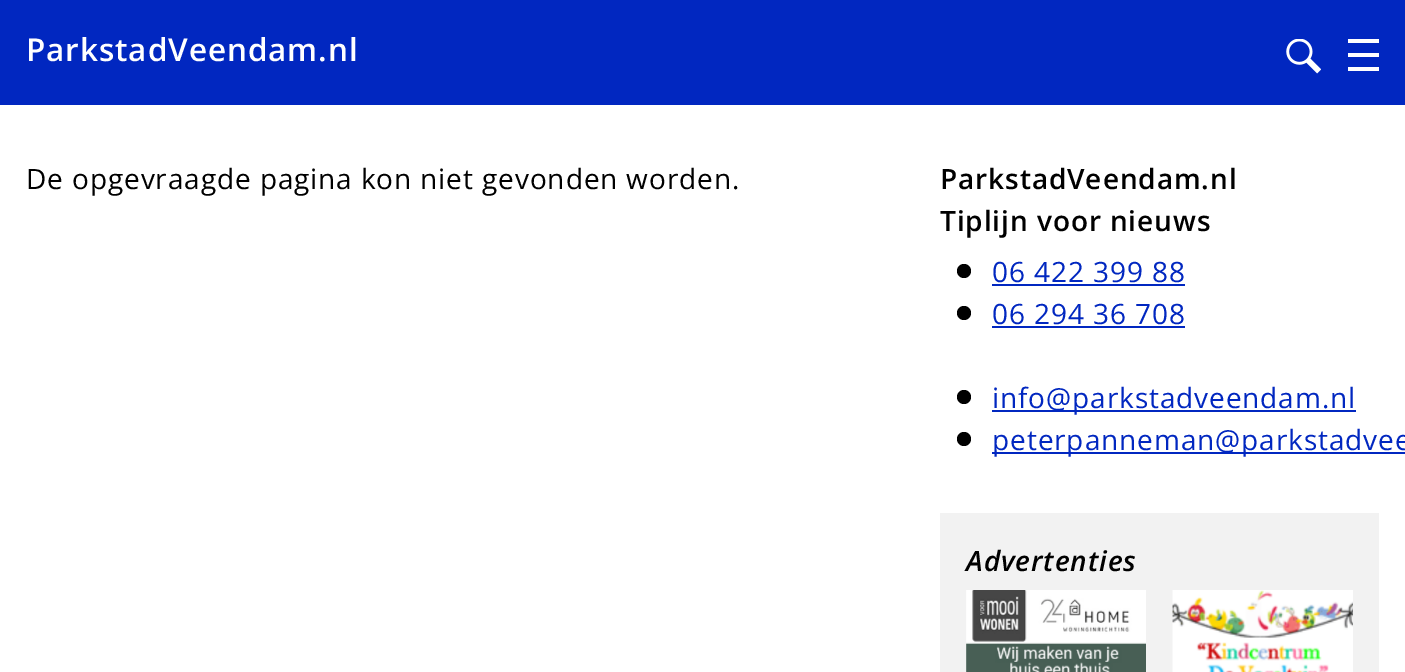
%!PS-Adobe-3.0
%%BoundingBox: 0 0 1405 672
%%LanguageLevel: 3
%%Pages: 1
%%EndComments
%%BeginProlog
/setink { dup -16 bitshift 255 div exch dup -8 bitshift 255 and 255 div exch 255 and 255 div setrgbcolor } def
/usefont { [ exch dup neg 0 0 3 -1 roll 0 0 ] selectfont } def
/disc { newpath 0 360 arc closepath } def
/drawimage { 5 dict begin { /h /w /y /x /name } { exch def } forall
  gsave x y translate w h scale
  w h 8 [w 0 0 h 0 0] name (r) file false 3 colorimage grestore end } def
%%EndProlog
%%BeginSetup
<< /PageSize [1405 672] >> setpagedevice
%%EndSetup
%%Page: 1 1
0 672 translate 1 -1 scale
4 setmiterlimit
16#FFFFFF setink
0 0 1405 672 rectfill
16#0127C0 setink
0 0 1405 105 rectfill
/OpenSans-SemiBold 31.5 usefont
16#FFFFFF setink
26 61 moveto 0.9 0 (ParkstadVeendam.nl) ashow
(img1.raw) 1286 39 35 35 drawimage
[
    [1348 53 31 4 16#FFFFFF]
    [1348 39 31 4 16#FFFFFF]
    [1348 67 31 4 16#FFFFFF]
] { aload pop setink rectfill } forall
/OpenSans-Regular 28 usefont
16#000000 setink
26 189 moveto 0.9 0 (De opgevraagde pagina kon niet gevonden worden.) ashow
/OpenSans-SemiBold 28 usefont
940 189 moveto 0.9 0 (ParkstadVeendam.nl) ashow
940 231 moveto 0.9 0 (Tiplijn voor nieuws) ashow
964 271 7 disc fill
/OpenSans-Regular 28 usefont
16#0127C0 setink
992 282 moveto 0.9 0 (06 422 399 88) ashow
992 284 193 2 rectfill
16#000000 setink
964 313 7 disc fill
16#0127C0 setink
992 324 moveto 0.9 0 (06 294 36 708) ashow
992 326 193 2 rectfill
16#000000 setink
964 397 7 disc fill
16#0127C0 setink
992 410 364 2 rectfill
992 408 moveto 0.9 0 (info@parkstadveendam.nl) ashow
16#000000 setink
964 439 7 disc fill
16#0127C0 setink
992 452 413 2 rectfill
992 450 moveto 0.9 0 (peterpanneman@parkstadvee) ashow
16#F2F2F2 setink
940 513 439 159 rectfill
/OpenSans-SemiBoldItalic 28 usefont
16#000000 setink
966 571 moveto 0.9 0 (Advertenties) ashow
(img2.raw) 966 590 180 82 drawimage
(img3.raw) 1172 590 181 82 drawimage
showpage
%%EOF
